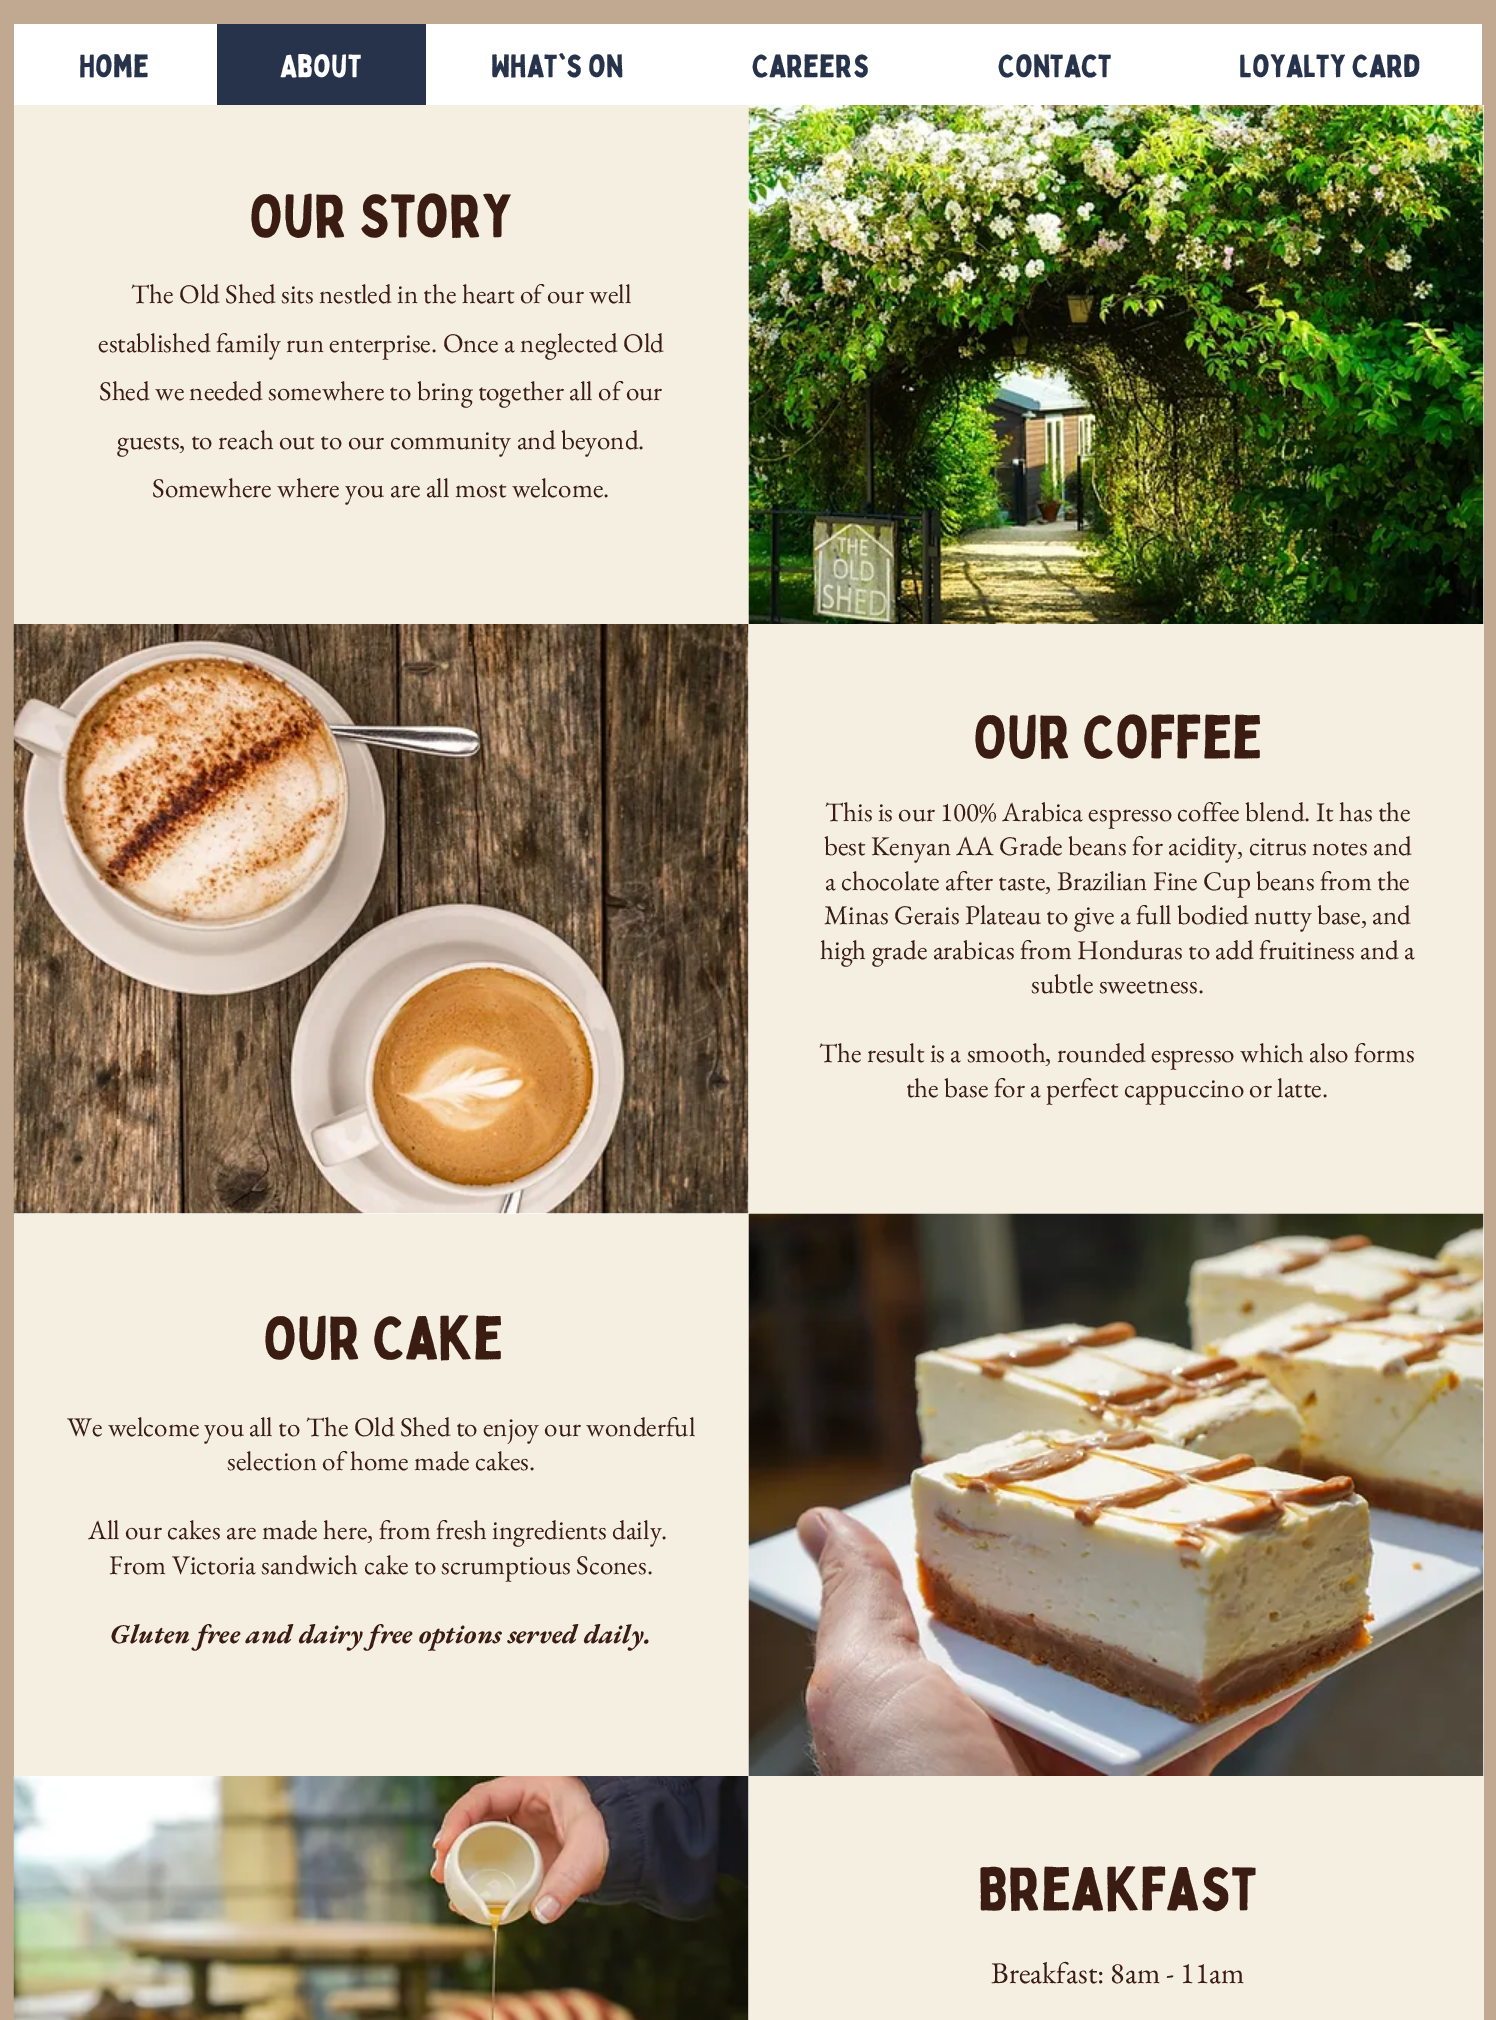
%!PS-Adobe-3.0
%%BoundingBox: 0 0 1496 2020
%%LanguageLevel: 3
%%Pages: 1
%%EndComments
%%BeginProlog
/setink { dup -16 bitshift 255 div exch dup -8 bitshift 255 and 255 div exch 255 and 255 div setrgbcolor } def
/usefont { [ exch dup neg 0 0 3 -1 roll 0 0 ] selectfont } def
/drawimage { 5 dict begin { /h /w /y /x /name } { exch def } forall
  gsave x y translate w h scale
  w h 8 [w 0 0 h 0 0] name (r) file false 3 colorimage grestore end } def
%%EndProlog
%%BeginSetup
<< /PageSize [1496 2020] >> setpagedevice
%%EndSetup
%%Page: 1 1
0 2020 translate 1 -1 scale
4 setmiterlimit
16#C0A891 setink
0 0 1496 2020 rectfill
16#FFFFFF setink
14 24 1468 81 rectfill
/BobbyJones-Regular 31.5 usefont
16#27334A setink
79 77 moveto (Home) show
217 24 209 81 rectfill
16#FFFFFF setink
280 77 moveto (About) show
16#27334A setink
[
    [(What's on) 491 77]
    [(Careers) 752 77]
    [(Contact) 998 77]
    [(Loyalty Card) 1239 77]
] { aload pop moveto show } forall
16#F4EFE1 setink
14 105 735 519 rectfill
/BobbyJones-Regular 60 usefont
16#3A1C13 setink
249 237 moveto (Our Story) show
/EBGaramond-Regular 27 usefont
[
    [(The Old Shed sits nestled in the heart of our well) 131 303]
    [(established family run enterprise. Once a neglected Old) 98 352]
    [(Shed we needed somewhere to bring together all of our) 99 400]
    [(guests, to reach out to our community and beyond.) 117 449]
    [(Somewhere where you are all most welcome.) 152 497]
] { aload pop moveto show } forall
16#FFFFFF setink
1483 105 1 519 rectfill
(img1.raw) 748 105 736 519 drawimage
14 624 735 590 rectfill
(img2.raw) 13 624 736 590 drawimage
16#F4EFE1 setink
749 624 735 590 rectfill
/BobbyJones-Regular 60 usefont
16#3A1C13 setink
973 758 moveto (Our Coffee) show
/EBGaramond-Regular 27 usefont
[
    [(This is our 100% Arabica espresso coffee blend. It has the) 825 821]
    [(best Kenyan AA Grade beans for acidity, citrus notes and) 824 855]
    [(a chocolate after taste, Brazilian Fine Cup beans from the) 825 890]
    [(Minas Gerais Plateau to give a full bodied nutty base, and) 824 924]
    [(high grade arabicas from Honduras to add fruitiness and a) 820 959]
    [(subtle sweetness.) 1031 993]
    [(The result is a smooth, rounded espresso which also forms) 819 1062]
    [(the base for a perfect cappuccino or latte.) 906 1097]
] { aload pop moveto show } forall
16#F4EFE1 setink
14 1214 735 562 rectfill
/BobbyJones-Regular 60 usefont
16#3A1C13 setink
263 1359 moveto (Our Cake) show
/EBGaramond-Regular 27 usefont
[
    [(We welcome you all to The Old Shed to enjoy our wonderful) 67 1436]
    [(selection of home made cakes.) 227 1470]
    [(All our cakes are made here, from fresh ingredients daily.) 88 1539]
    [(From Victoria sandwich cake to scrumptious Scones.) 109 1574]
] { aload pop moveto show } forall
/EBGaramond-BoldItalic 27 usefont
110 1643 moveto (Gluten free and dairy free options served daily.) show
16#FFFFFF setink
1483 1214 1 562 rectfill
(img3.raw) 748 1213 736 563 drawimage
748 1776 1 244 rectfill
(img4.raw) 13 1776 736 244 drawimage
16#F4EFE1 setink
749 1776 735 244 rectfill
/BobbyJones-Regular 60 usefont
16#3A1C13 setink
978 1910 moveto (Breakfast) show
/EBGaramond-Regular 30 usefont
991 1983 moveto (Breakfast: 8am - 11am) show
showpage
%%EOF
